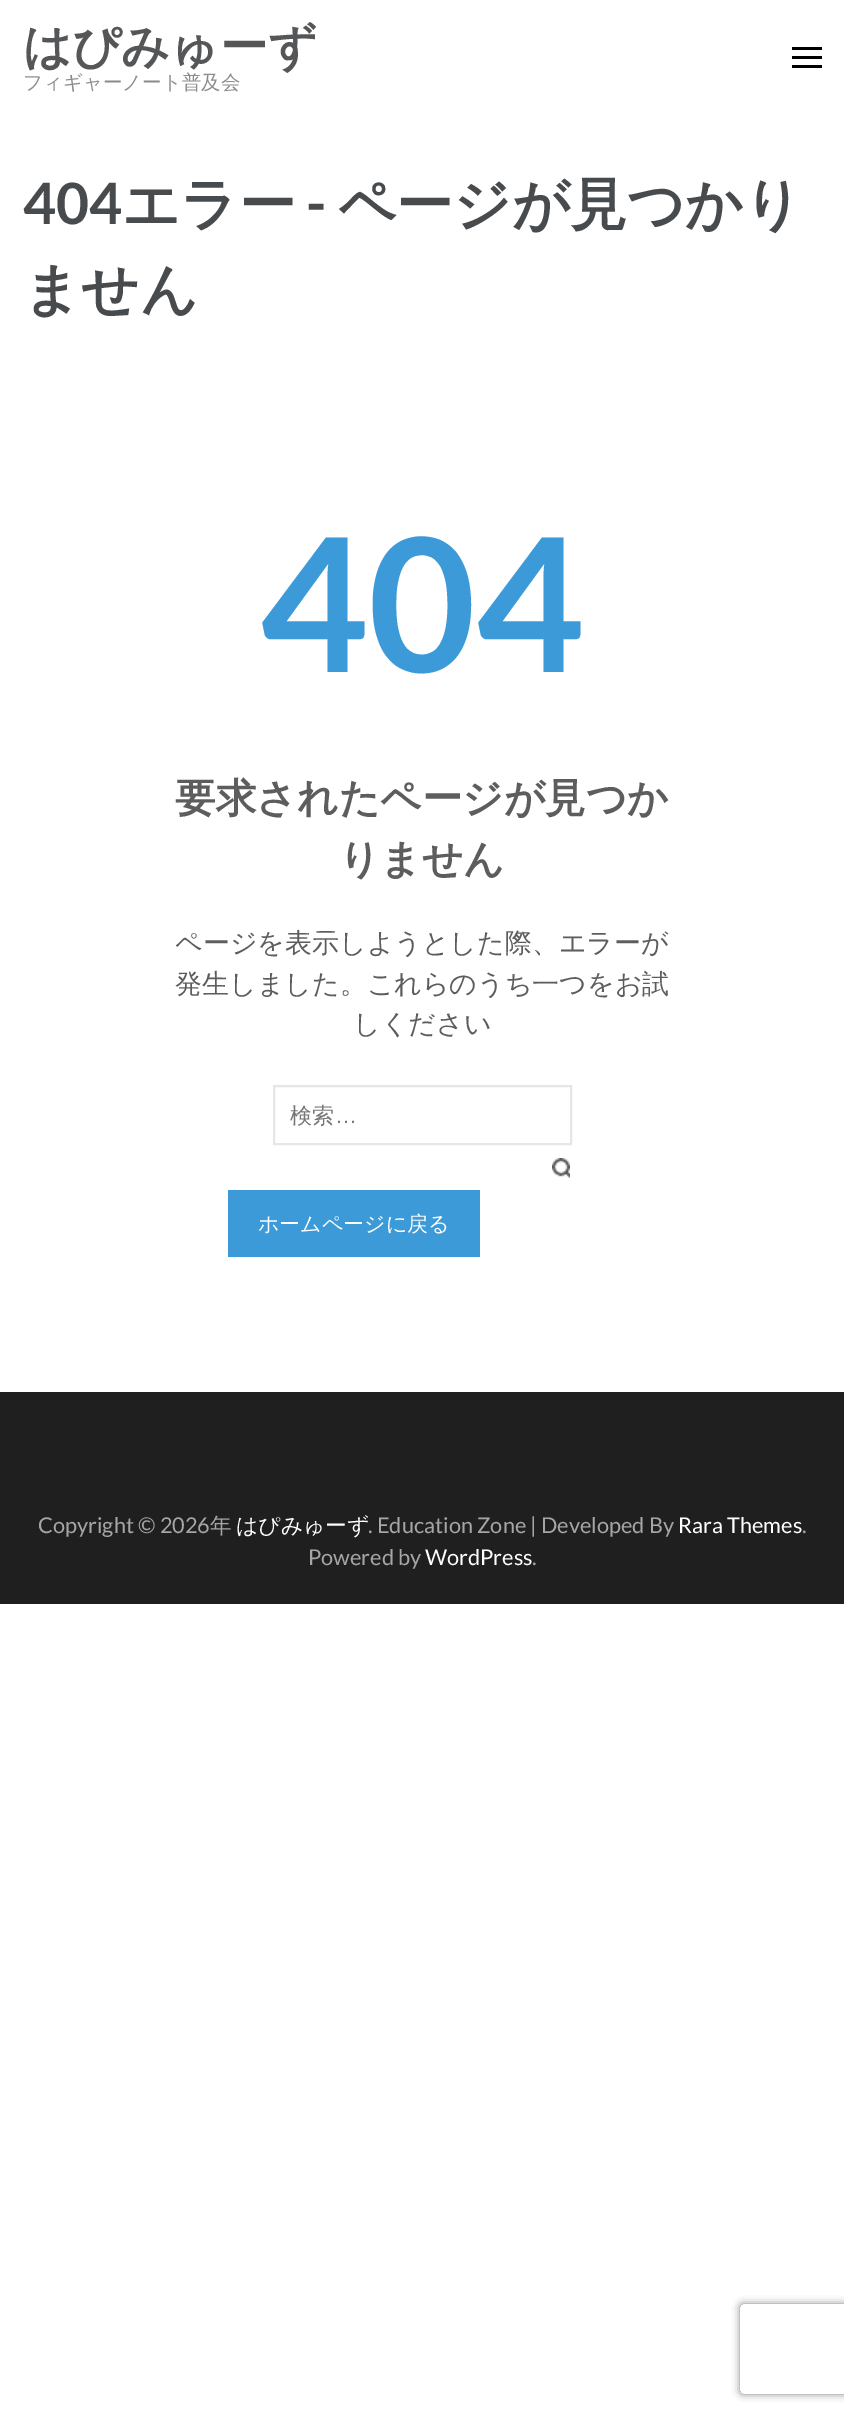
%!PS-Adobe-3.0
%%BoundingBox: 0 0 844 2414
%%LanguageLevel: 3
%%Pages: 1
%%EndComments
%%BeginProlog
/setink { dup -16 bitshift 255 div exch dup -8 bitshift 255 and 255 div exch 255 and 255 div setrgbcolor } def
/usefont { [ exch dup neg 0 0 3 -1 roll 0 0 ] selectfont } def
/setalpha { dup .setfillconstantalpha .setstrokeconstantalpha } def
/rrect { 5 dict begin { /r /h /w /y /x } { exch def } forall
  x r add y moveto x w add y 2 copy h add r arct x w add y h add x 1 index r arct
  x y h add x y r arct x y 2 copy exch w add exch r arct closepath end } def
/softshadow { 12 dict begin { /a /b /q /h /w /y /x } { exch def } forall gsave /was 0 def
  9 -2 -9 { dup b mul 4 div /e exch def 1 sub .425 mul 2.718 exch exp 1 add a .99 .min exch div /now exch def
    1 1 now sub 1 was sub div sub setalpha /was now def
    w h .min e 2 mul add 0 gt { x e sub y e sub w e 2 mul add h e 2 mul add
      q e add b .6 mul add w h .min 2 div e add .min 0 .max rrect fill } if } for grestore end } def
/drawimage { 5 dict begin { /h /w /y /x /name } { exch def } forall
  gsave x y translate w h scale
  w h 8 [w 0 0 h 0 0] name (r) file false 3 colorimage grestore end } def
%%EndProlog
%%BeginSetup
<< /PageSize [844 2414] /PageUsesTransparency true >> setpagedevice
%%EndSetup
%%Page: 1 1
0 .pushpdf14devicefilter
0 2414 translate 1 -1 scale
4 setmiterlimit
16#FFFFFF setink
0 0 844 2414 rectfill
/WenQuanYiZenHei-Bold 48 usefont
16#555658 setink
23 63 moveto (はぴみゅーず) show
/WenQuanYiZenHei-Medium 19.5 usefont
16#8C8C8C setink
23 89 moveto (フィギャーノート普及会) show
[
    [792 47 30 3 16#000000]
    [792 56 30 3 16#000000]
    [792 65 30 3 16#000000]
] { aload pop setink rectfill } forall
/Lato-Bold 57 usefont
16#474B4E setink
23 224 moveto (404) show
/WenQuanYiZenHei-Bold 57 usefont
122 224 moveto (エラー) show
/Lato-Bold 57 usefont
306 224 moveto (-) show
/WenQuanYiZenHei-Bold 57 usefont
338 224 moveto (ページが見つかり) show
23 309 moveto (ません) show
/Lato-Bold 186 usefont
16#3B9AD7 setink
260 672 moveto (404) show
/WenQuanYiZenHei-Bold 40.5 usefont
16#5D5D5D setink
175 812 moveto (要求されたページが見つか) show
339 873 moveto (りません) show
/WenQuanYiZenHei-Medium 27 usefont
[
    [(ページを表示しようとした際、エラーが) 175 952]
    [(発生しました。これらのうち一つをお試) 175 993]
    [(しください) 353 1033]
] { aload pop moveto show } forall
16#E6E6E6 setink
2 setlinewidth
274 1086 297 58 rectstroke
/WenQuanYiZenHei-Medium 22 usefont
16#757575 setink
290 1123 moveto (検索) show
/LiberationSans-Regular 22 usefont
335 1123 moveto (…) show
(img1.raw) 552 1158 18 20 drawimage
16#3B9AD7 setink
228 1190 252 67 rectfill
/WenQuanYiZenHei-Medium 21 usefont
16#FFFFFF setink
258 1231 moveto (ホームページに戻る) show
16#1F1F1F setink
0 1392 844 212 rectfill
/Lato-Regular 21.75 usefont
16#A6A6A6 setink
38 1533 moveto (Copyright © 2026) show
/WenQuanYiZenHei-Medium 21.75 usefont
210 1533 moveto (年) show
16#FFFFFF setink
236 1533 moveto (はぴみゅーず) show
/Lato-Regular 21.75 usefont
16#A6A6A6 setink
368 1533 moveto (. Education Zone | Developed By) show
16#FFFFFF setink
678 1533 moveto (Rara Themes) show
16#A6A6A6 setink
802 1533 moveto (.) show
308 1565 moveto (Powered by) show
16#FFFFFF setink
425 1565 moveto (WordPress) show
16#A6A6A6 setink
532 1565 moveto (.) show
gsave
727 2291 moveto 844 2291 lineto 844 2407 lineto 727 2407 lineto closepath 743 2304 moveto 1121 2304 lineto 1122.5 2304 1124 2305.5 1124 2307 curveto 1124 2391 lineto 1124 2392.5 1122.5 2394 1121 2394 curveto 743 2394 lineto 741.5 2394 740 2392.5 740 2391 curveto 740 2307 lineto 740 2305.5 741.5 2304 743 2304 curveto closepath eoclip newpath
16#808080 setink
740 2304 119 90 3 4 1 softshadow
grestore
.poppdf14devicefilter showpage
%%EOF
